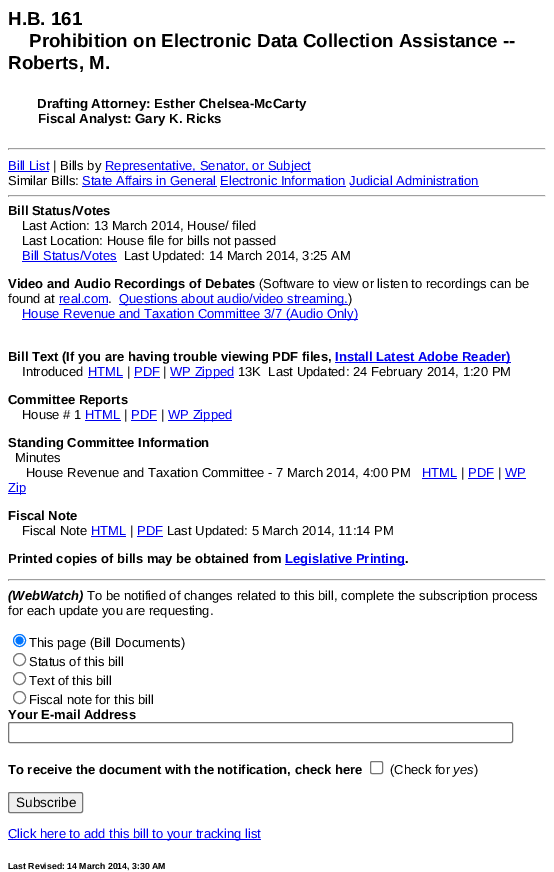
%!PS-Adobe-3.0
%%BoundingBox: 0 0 554 872
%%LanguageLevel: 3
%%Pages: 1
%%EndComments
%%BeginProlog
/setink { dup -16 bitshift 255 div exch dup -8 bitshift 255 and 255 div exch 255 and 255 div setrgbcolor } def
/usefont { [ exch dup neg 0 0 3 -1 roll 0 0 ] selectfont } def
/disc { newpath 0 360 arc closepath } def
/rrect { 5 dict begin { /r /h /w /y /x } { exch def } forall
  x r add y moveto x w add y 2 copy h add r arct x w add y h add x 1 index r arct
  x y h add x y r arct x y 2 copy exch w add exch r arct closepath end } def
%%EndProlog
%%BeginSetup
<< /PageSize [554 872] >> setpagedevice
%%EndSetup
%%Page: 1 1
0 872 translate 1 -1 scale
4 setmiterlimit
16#FFFFFF setink
0 0 554 872 rectfill
/LiberationSans-Bold 18.75 usefont
16#000000 setink
[
    [(H.B. 161) 8 25]
    [(Prohibition on Electronic Data Collection Assistance --) 29 47]
    [(Roberts, M.) 8 69]
] { aload pop moveto show } forall
/LiberationSans-Bold 13.25 usefont
37 108 moveto (Drafting Attorney: Esther Chelsea-McCarty) show
38 123 moveto (Fiscal Analyst: Gary K. Ricks) show
[
    [8 148 538 1 16#9F9F9F]
    [545 148 1 2 16#EEEEEE]
    [8 149 538 1 16#EEEEEE]
    [8 148 1 2 16#9F9F9F]
] { aload pop setink rectfill } forall
/LiberationSans-Regular 13 usefont
16#0000EE setink
8 170 moveto (Bill List) show
8 171 41 1 rectfill
16#000000 setink
53 170 moveto (| Bills by) show
16#0000EE setink
105 171 206 1 rectfill
105 170 moveto (Representative, Senator, or Subject) show
16#000000 setink
8 185 moveto (Similar Bills:) show
16#0000EE setink
82 185 moveto (State Affairs in General Electronic Information Judicial Administration) show
[
    [82 186 135 1 16#0000EE]
    [220 186 126 1 16#0000EE]
    [350 186 129 1 16#0000EE]
    [8 195 538 1 16#9F9F9F]
    [545 195 1 2 16#EEEEEE]
    [8 196 538 1 16#EEEEEE]
    [8 195 1 2 16#9F9F9F]
] { aload pop setink rectfill } forall
/LiberationSans-Bold 13 usefont
16#000000 setink
8 215 moveto (Bill Status/Votes) show
/LiberationSans-Regular 13 usefont
22 230 moveto (Last Action: 13 March 2014, House/ filed) show
22 245 moveto (Last Location: House file for bills not passed) show
16#0000EE setink
22 260 moveto (Bill Status/Votes) show
22 261 95 1 rectfill
16#000000 setink
124 260 moveto (Last Updated: 14 March 2014, 3:25 AM) show
/LiberationSans-Bold 13 usefont
8 288 moveto (Video and Audio Recordings of Debates) show
/LiberationSans-Regular 13 usefont
259 288 moveto (\(Software to view or listen to recordings can be) show
8 303 moveto (found at) show
16#0000EE setink
59 303 moveto (real.com) show
59 304 49 1 rectfill
16#000000 setink
108 303 moveto (.) show
16#0000EE setink
119 304 229 1 rectfill
119 303 moveto (Questions about audio/video streaming.) show
16#000000 setink
348 303 moveto (\)) show
16#0000EE setink
22 319 336 1 rectfill
22 318 moveto (House Revenue and Taxation Committee 3/7 \(Audio Only\)) show
/LiberationSans-Bold 13 usefont
16#000000 setink
8 361 moveto (Bill Text \(If you are having trouble viewing PDF files,) show
16#0000EE setink
335 362 176 1 rectfill
335 361 moveto (Install Latest Adobe Reader\)) show
/LiberationSans-Regular 13 usefont
16#000000 setink
22 376 moveto (Introduced) show
16#0000EE setink
88 376 moveto (HTML) show
88 377 35 1 rectfill
16#000000 setink
127 376 moveto (|) show
16#0000EE setink
134 376 moveto (PDF) show
134 377 26 1 rectfill
16#000000 setink
163 376 moveto (|) show
16#0000EE setink
170 377 64 1 rectfill
170 376 moveto (WP Zipped) show
16#000000 setink
238 376 moveto (13K  Last Updated: 24 February 2014, 1:20 PM) show
/LiberationSans-Bold 13 usefont
8 404 moveto (Committee Reports) show
/LiberationSans-Regular 13 usefont
22 419 moveto (House # 1) show
16#0000EE setink
85 419 moveto (HTML) show
85 420 36 1 rectfill
16#000000 setink
124 419 moveto (|) show
16#0000EE setink
131 419 moveto (PDF) show
131 420 26 1 rectfill
16#000000 setink
161 419 moveto (|) show
16#0000EE setink
168 420 64 1 rectfill
168 419 moveto (WP Zipped) show
/LiberationSans-Bold 13 usefont
16#000000 setink
8 447 moveto (Standing Committee Information) show
/LiberationSans-Regular 13 usefont
15 462 moveto (Minutes) show
26 477 moveto (House Revenue and Taxation Committee - 7 March 2014, 4:00 PM) show
16#0000EE setink
422 477 moveto (HTML) show
422 478 35 1 rectfill
16#000000 setink
461 477 moveto (|) show
16#0000EE setink
468 477 moveto (PDF) show
468 478 26 1 rectfill
16#000000 setink
498 477 moveto (|) show
16#0000EE setink
505 477 moveto (WP) show
505 478 21 1 rectfill
8 493 18 1 rectfill
8 492 moveto (Zip) show
/LiberationSans-Bold 13 usefont
16#000000 setink
8 520 moveto (Fiscal Note) show
/LiberationSans-Regular 13 usefont
22 535 moveto (Fiscal Note) show
16#0000EE setink
91 535 moveto (HTML) show
91 536 35 1 rectfill
16#000000 setink
130 535 moveto (|) show
16#0000EE setink
137 535 moveto (PDF) show
137 536 26 1 rectfill
16#000000 setink
167 535 moveto (Last Updated: 5 March 2014, 11:14 PM) show
/LiberationSans-Bold 13 usefont
8 563 moveto (Printed copies of bills may be obtained from) show
16#0000EE setink
285 564 120 1 rectfill
285 563 moveto (Legislative Printing) show
16#000000 setink
405 563 moveto (.) show
[
    [8 579 538 1 16#9F9F9F]
    [545 579 1 2 16#EEEEEE]
    [8 580 538 1 16#EEEEEE]
    [8 579 1 2 16#9F9F9F]
] { aload pop setink rectfill } forall
/LiberationSans-BoldItalic 13 usefont
16#000000 setink
8 600 moveto (\(WebWatch\)) show
/LiberationSans-Regular 13 usefont
87 600 moveto (To be notified of changes related to this bill, complete the subscription process) show
8 615 moveto (for each update you are requesting.) show
16#0075FF setink
19.5 640.5 6 disc stroke
19.5 640.5 4 disc fill
16#000000 setink
29 647 moveto (This page \(Bill Documents\)) show
16#767676 setink
19.5 659.5 6 disc stroke
16#000000 setink
29 666 moveto (Status of this bill) show
16#767676 setink
19.5 678.5 6 disc stroke
16#000000 setink
29 685 moveto (Text of this bill) show
16#767676 setink
19.5 697.5 6 disc stroke
16#000000 setink
29 704 moveto (Fiscal note for this bill) show
/LiberationSans-Bold 13 usefont
8 719 moveto (Your E-mail Address) show
16#767676 setink
8.5 722.5 504 20 1.5 rrect stroke
16#000000 setink
8 774 moveto (To receive the document with the notification, check here) show
16#767676 setink
370.5 761.5 12 12 1.5 rrect stroke
/LiberationSans-Regular 13 usefont
16#000000 setink
390 774 moveto (\(Check for) show
/LiberationSans-Italic 13 usefont
453 774 moveto (yes) show
/LiberationSans-Regular 13 usefont
474 774 moveto (\)) show
16#EFEFEF setink
8.5 792.5 74 20 1.5 rrect gsave fill grestore
16#767676 setink
stroke
/LiberationSans-Regular 13.5 usefont
16#000000 setink
16 807 moveto (Subscribe) show
16#0000EE setink
8 839 253 1 rectfill
/LiberationSans-Regular 13 usefont
8 838 moveto (Click here to add this bill to your tracking list) show
/LiberationSans-Bold 8.75 usefont
16#000000 setink
8 869 moveto (Last Revised: 14 March 2014, 3:30 AM) show
showpage
%%EOF
